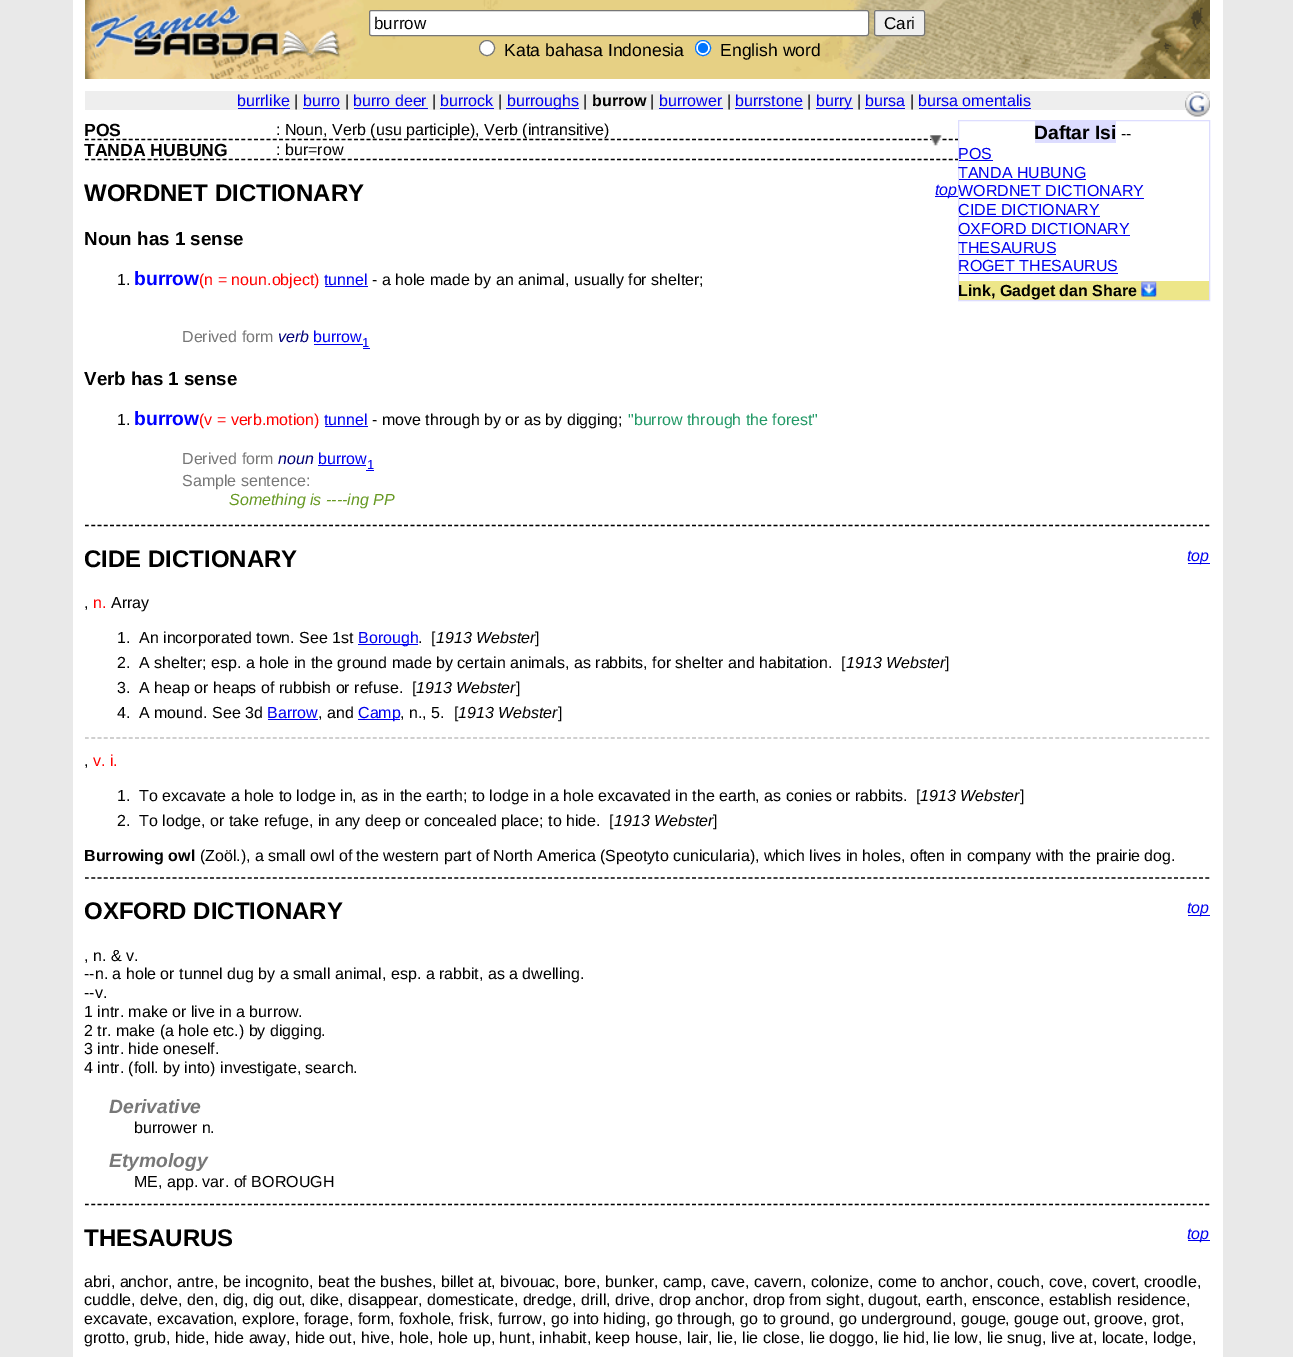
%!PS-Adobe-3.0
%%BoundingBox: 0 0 1293 1357
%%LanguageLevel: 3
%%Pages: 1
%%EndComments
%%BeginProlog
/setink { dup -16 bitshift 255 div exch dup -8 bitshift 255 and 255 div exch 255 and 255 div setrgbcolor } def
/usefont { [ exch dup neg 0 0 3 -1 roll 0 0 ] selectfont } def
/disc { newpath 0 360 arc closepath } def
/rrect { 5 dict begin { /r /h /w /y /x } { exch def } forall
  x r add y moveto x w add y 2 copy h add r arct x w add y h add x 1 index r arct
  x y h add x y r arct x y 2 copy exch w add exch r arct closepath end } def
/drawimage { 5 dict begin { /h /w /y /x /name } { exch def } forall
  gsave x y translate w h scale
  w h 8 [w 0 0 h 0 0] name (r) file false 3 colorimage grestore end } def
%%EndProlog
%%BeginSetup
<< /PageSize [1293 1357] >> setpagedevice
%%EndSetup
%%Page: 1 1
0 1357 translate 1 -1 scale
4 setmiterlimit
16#E9E9E9 setink
0 0 1293 1357 rectfill
[
    [85 79 1125 1278 16#FFFFFF]
    [1210 0 13 1357 16#FFFFFF]
    [73 0 12 1357 16#FFFFFF]
] { aload pop setink rectfill } forall
(img1.raw) 85 0 1125 79 drawimage
369.5 10.5 499 25 2 rrect gsave fill grestore
16#767676 setink
stroke
/LiberationSans-Regular 17 usefont
16#000000 setink
374 29 moveto (burrow) show
16#EFEFEF setink
874.5 10.5 50 25 2 rrect gsave fill grestore
16#767676 setink
stroke
16#000000 setink
884 29 moveto (Cari) show
16#FFFFFF setink
487 48 7.5 disc gsave fill grestore
16#767676 setink
stroke
/LiberationSans-Regular 17.6 usefont
16#000000 setink
504 56 moveto (Kata bahasa Indonesia) show
16#FFFFFF setink
703 48 7.5 disc gsave fill grestore
16#0075FF setink
stroke
703 48 5 disc fill
16#000000 setink
720 56 moveto (English word) show
16#EEEEEE setink
85 91 1125 19 rectfill
/LiberationSans-Regular 16 usefont
16#0000EE setink
237 106 moveto (burrlike) show
238 108 52 1 rectfill
16#000000 setink
294 106 moveto (|) show
16#0000EE setink
303 106 moveto (burro) show
303 108 37 1 rectfill
16#000000 setink
345 106 moveto (|) show
16#0000EE setink
353 106 moveto (burro deer) show
354 108 74 1 rectfill
16#000000 setink
432 106 moveto (|) show
16#0000EE setink
440 106 moveto (burrock) show
440 108 54 1 rectfill
16#000000 setink
498 106 moveto (|) show
16#0000EE setink
506 108 73 1 rectfill
507 106 moveto (burroughs) show
16#000000 setink
583 106 moveto (|) show
/LiberationSans-Bold 16 usefont
592 106 moveto (burrow) show
/LiberationSans-Regular 16 usefont
650 106 moveto (|) show
16#0000EE setink
659 106 moveto (burrower) show
659 108 64 1 rectfill
16#000000 setink
727 106 moveto (|) show
16#0000EE setink
735 106 moveto (burrstone) show
735 108 68 1 rectfill
16#000000 setink
807 106 moveto (|) show
16#0000EE setink
816 108 37 1 rectfill
816 106 moveto (burry) show
16#000000 setink
857 106 moveto (|) show
16#0000EE setink
865 106 moveto (bursa) show
865 108 40 1 rectfill
16#000000 setink
910 106 moveto (|) show
16#0000EE setink
918 106 moveto (bursa omentalis) show
919 108 112 1 rectfill
(img2.raw) 1185 91 25 26 drawimage
16#000000 setink
1.2 setlinewidth
[3.75 2.51] 0 setdash
85 139.5 moveto 1210 139.5 lineto stroke
/LiberationSans-Bold 17.6 usefont
84 136 moveto (POS) show
/LiberationSans-Regular 16 usefont
276 135 moveto (: Noun, Verb \(usu participle\), Verb \(intransitive\)) show
85 159.5 moveto 1210 159.5 lineto stroke
/LiberationSans-Bold 17.6 usefont
84 156 moveto (TANDA HUBUNG) show
/LiberationSans-Regular 16 usefont
276 155 moveto (: bur=row) show
85 525.5 moveto 1210 525.5 lineto stroke
/LiberationSans-Bold 24 usefont
84 201 moveto (WORDNET DICTIONARY) show
16#0000EE setink
935 196 23 1 rectfill
/LiberationSans-Italic 16 usefont
935 195 moveto (top) show
/LiberationSans-Bold 18.75 usefont
16#000000 setink
84 245 moveto (Noun has 1 sense) show
/LiberationSans-Regular 16 usefont
117 285 moveto (1.) show
/LiberationSans-Bold 19.25 usefont
16#0000FF setink
134 285 moveto (burrow) show
/LiberationSans-Regular 16 usefont
16#FF0000 setink
199 285 moveto (\(n = noun.object\)) show
16#0000EE setink
324 285 moveto (tunnel) show
325 286 43 1 rectfill
16#000000 setink
372 285 moveto (- a hole made by an animal, usually for shelter;) show
16#777777 setink
182 342 moveto (Derived form) show
/LiberationSans-Italic 16 usefont
16#000077 setink
278 342 moveto (verb) show
/LiberationSans-Regular 16 usefont
16#0000EE setink
313 342 moveto (burrow) show
/LiberationSans-Regular 13 usefont
362 347 moveto (1) show
314 344 49 1 rectfill
363 348 7 1 rectfill
/LiberationSans-Bold 18.75 usefont
16#000000 setink
84 385 moveto (Verb has 1 sense) show
/LiberationSans-Regular 16 usefont
117 425 moveto (1.) show
/LiberationSans-Bold 19.25 usefont
16#0000FF setink
134 425 moveto (burrow) show
/LiberationSans-Regular 16 usefont
16#FF0000 setink
199 425 moveto (\(v = verb.motion\)) show
16#0000EE setink
324 425 moveto (tunnel) show
325 426 43 1 rectfill
16#000000 setink
372 425 moveto (- move through by or as by digging;) show
16#229966 setink
628 425 moveto ("burrow through the forest") show
16#777777 setink
182 464 moveto (Derived form) show
/LiberationSans-Italic 16 usefont
16#000077 setink
278 464 moveto (noun) show
/LiberationSans-Regular 16 usefont
16#0000EE setink
318 464 moveto (burrow) show
/LiberationSans-Regular 13 usefont
367 469 moveto (1) show
318 465 48 1 rectfill
366 470 8 1 rectfill
/LiberationSans-Regular 16 usefont
16#777777 setink
182 486 moveto (Sample sentence:) show
/LiberationSans-Italic 16 usefont
16#669922 setink
229 505 moveto (Something is ----ing PP) show
16#000000 setink
85 878 moveto 1210 878 lineto stroke
/LiberationSans-Bold 24 usefont
84 567 moveto (CIDE DICTIONARY) show
16#0000EE setink
1188 563 22 1 rectfill
/LiberationSans-Italic 16 usefont
1187 561 moveto (top) show
16#C0C0C0 setink
85 738 moveto 1210 738 lineto stroke
/LiberationSans-Regular 16 usefont
16#FF0000 setink
93 608 moveto (n.) show
16#000000 setink
[
    [(Array) 111 608]
    [(,) 84 608]
    [(1.) 117 643]
    [(An incorporated town. See 1st) 139 643]
] { aload pop moveto show } forall
16#0000EE setink
358 644 60 1 rectfill
358 643 moveto (Borough) show
16#000000 setink
418 643 moveto (.) show
431 643 moveto ([) show
/LiberationSans-Italic 16 usefont
436 643 moveto (1913 Webster) show
/LiberationSans-Regular 16 usefont
[
    [(]) 535 643]
    [(2.) 117 668]
    [(A shelter; esp. a hole in the ground made by certain animals, as rabbits, for shelter and habitation.) 139 668]
    [([) 841 668]
] { aload pop moveto show } forall
/LiberationSans-Italic 16 usefont
846 668 moveto (1913 Webster) show
/LiberationSans-Regular 16 usefont
[
    [(]) 945 668]
    [(3.) 117 693]
    [(A heap or heaps of rubbish or refuse.) 139 693]
    [([) 412 693]
] { aload pop moveto show } forall
/LiberationSans-Italic 16 usefont
416 693 moveto (1913 Webster) show
/LiberationSans-Regular 16 usefont
[
    [(]) 516 693]
    [(4.) 117 718]
    [(A mound. See 3d) 139 718]
    [(, and) 318 718]
] { aload pop moveto show } forall
16#0000EE setink
358 719 42 1 rectfill
358 718 moveto (Camp) show
16#000000 setink
454 718 moveto ([) show
/LiberationSans-Italic 16 usefont
458 718 moveto (1913 Webster) show
/LiberationSans-Regular 16 usefont
16#0000EE setink
267 718 moveto (Barrow) show
268 719 50 1 rectfill
16#000000 setink
400 718 moveto (, n., 5.) show
558 718 moveto (]) show
16#FF0000 setink
93 766 moveto (v. i.) show
16#000000 setink
[
    [(,) 84 766]
    [(1.) 117 801]
    [(To excavate a hole to lodge in, as in the earth; to lodge in a hole excavated in the earth, as conies or rabbits.) 139 801]
    [([) 916 801]
] { aload pop moveto show } forall
/LiberationSans-Italic 16 usefont
920 801 moveto (1913 Webster) show
/LiberationSans-Regular 16 usefont
[
    [(]) 1020 801]
    [(2.) 117 826]
    [(To lodge, or take refuge, in any deep or concealed place; to hide.) 139 826]
    [([) 609 826]
] { aload pop moveto show } forall
/LiberationSans-Italic 16 usefont
614 826 moveto (1913 Webster) show
/LiberationSans-Regular 16 usefont
713 826 moveto (]) show
/LiberationSans-Bold 16 usefont
84 861 moveto (Burrowing owl) show
/LiberationSans-Regular 16 usefont
200 861 moveto (\(Zoöl.\), a small owl of the western part of North America \(Speotyto cunicularia\), which lives in holes, often in company with the prairie dog.) show
85 1204.5 moveto 1210 1204.5 lineto stroke
/LiberationSans-Bold 24 usefont
84 919 moveto (OXFORD DICTIONARY) show
16#0000EE setink
1188 915 22 1 rectfill
/LiberationSans-Italic 16 usefont
1187 913 moveto (top) show
/LiberationSans-Regular 16 usefont
16#000000 setink
[
    [(, n. & v.) 84 961]
    [(--n. a hole or tunnel dug by a small animal, esp. a rabbit, as a dwelling.) 84 979]
    [(--v.) 84 998]
    [(1 intr. make or live in a burrow.) 84 1017]
    [(2 tr. make \(a hole etc.\) by digging.) 84 1036]
    [(3 intr. hide oneself.) 84 1054]
    [(4 intr. \(foll. by into\) investigate, search.) 84 1073]
] { aload pop moveto show } forall
/LiberationSans-BoldItalic 19.25 usefont
16#777777 setink
109 1113 moveto (Derivative) show
/LiberationSans-Regular 16 usefont
16#000000 setink
134 1133 moveto (burrower n.) show
/LiberationSans-BoldItalic 19.25 usefont
16#777777 setink
109 1167 moveto (Etymology) show
/LiberationSans-Regular 16 usefont
16#000000 setink
134 1187 moveto (ME, app. var. of BOROUGH) show
/LiberationSans-Bold 24 usefont
84 1246 moveto (THESAURUS) show
16#0000EE setink
1188 1240 22 1 rectfill
/LiberationSans-Italic 16 usefont
1187 1239 moveto (top) show
/LiberationSans-Regular 16 usefont
16#000000 setink
[
    [(abri, anchor, antre, be incognito, beat the bushes, billet at, bivouac, bore, bunker, camp, cave, cavern, colonize, come to anchor, couch, cove, covert, croodle,) 84 1287]
    [(cuddle, delve, den, dig, dig out, dike, disappear, domesticate, dredge, drill, drive, drop anchor, drop from sight, dugout, earth, ensconce, establish residence,) 84 1305]
    [(excavate, excavation, explore, forage, form, foxhole, frisk, furrow, go into hiding, go through, go to ground, go underground, gouge, gouge out, groove, grot,) 84 1324]
    [(grotto, grub, hide, hide away, hide out, hive, hole, hole up, hunt, inhabit, keep house, lair, lie, lie close, lie doggo, lie hid, lie low, lie snug, live at, locate, lodge,) 84 1343]
] { aload pop moveto show } forall
(img3.raw) 929 135 13 11 drawimage
16#FFFFFF setink
961 138 248 23 rectfill
16#DDDDFF setink
1 setlinewidth
[] 0 setdash
958.5 120.5 251 180 rectstroke
1035 121 81 22 rectfill
/LiberationSans-Bold 19.25 usefont
16#000000 setink
1034 139 moveto (Daftar Isi) show
/LiberationSans-Regular 16 usefont
1121 139 moveto (--) show
16#0000EE setink
958 159 moveto (POS) show
959 160 34 1 rectfill
958 178 moveto (TANDA HUBUNG) show
959 179 127 1 rectfill
958 196 moveto (WORDNET DICTIONARY) show
959 198 185 1 rectfill
958 215 moveto (CIDE DICTIONARY) show
959 216 141 1 rectfill
958 234 moveto (OXFORD DICTIONARY) show
959 235 171 1 rectfill
958 253 moveto (THESAURUS) show
959 254 97 1 rectfill
958 271 moveto (ROGET THESAURUS) show
959 273 159 1 rectfill
16#EDE689 setink
959 281 250 19 rectfill
/LiberationSans-Bold 16 usefont
16#000000 setink
958 296 moveto (Link, Gadget dan Share) show
(img4.raw) 1141 281 16 16 drawimage
showpage
%%EOF
